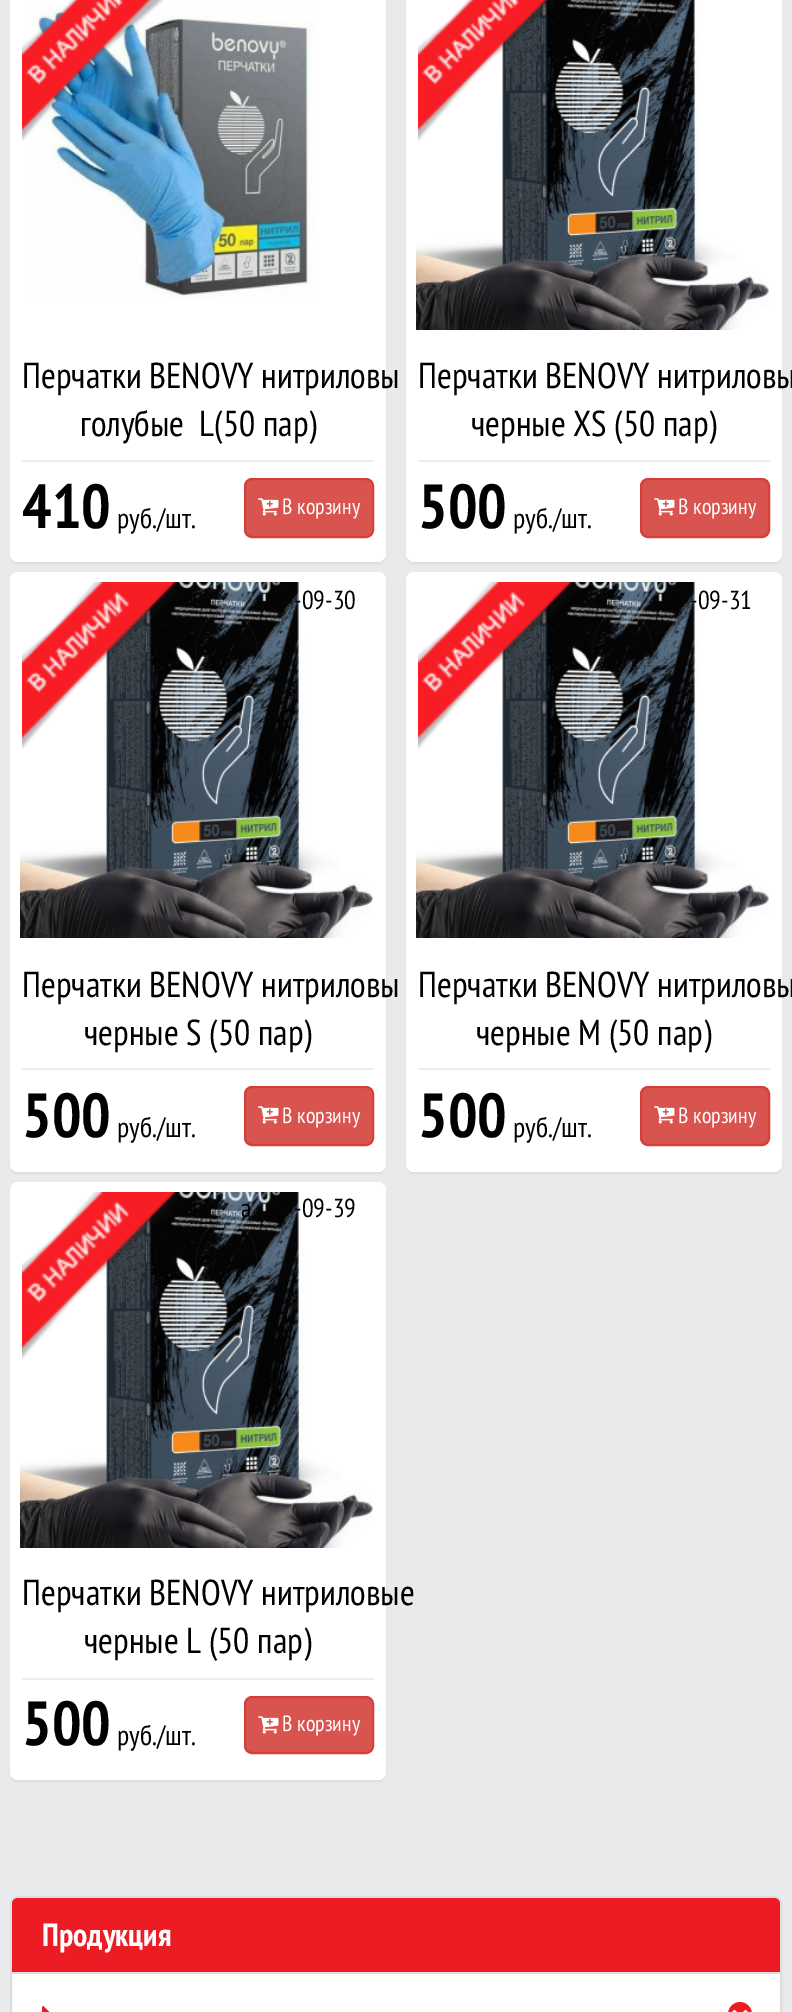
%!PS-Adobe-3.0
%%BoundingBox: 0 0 792 2012
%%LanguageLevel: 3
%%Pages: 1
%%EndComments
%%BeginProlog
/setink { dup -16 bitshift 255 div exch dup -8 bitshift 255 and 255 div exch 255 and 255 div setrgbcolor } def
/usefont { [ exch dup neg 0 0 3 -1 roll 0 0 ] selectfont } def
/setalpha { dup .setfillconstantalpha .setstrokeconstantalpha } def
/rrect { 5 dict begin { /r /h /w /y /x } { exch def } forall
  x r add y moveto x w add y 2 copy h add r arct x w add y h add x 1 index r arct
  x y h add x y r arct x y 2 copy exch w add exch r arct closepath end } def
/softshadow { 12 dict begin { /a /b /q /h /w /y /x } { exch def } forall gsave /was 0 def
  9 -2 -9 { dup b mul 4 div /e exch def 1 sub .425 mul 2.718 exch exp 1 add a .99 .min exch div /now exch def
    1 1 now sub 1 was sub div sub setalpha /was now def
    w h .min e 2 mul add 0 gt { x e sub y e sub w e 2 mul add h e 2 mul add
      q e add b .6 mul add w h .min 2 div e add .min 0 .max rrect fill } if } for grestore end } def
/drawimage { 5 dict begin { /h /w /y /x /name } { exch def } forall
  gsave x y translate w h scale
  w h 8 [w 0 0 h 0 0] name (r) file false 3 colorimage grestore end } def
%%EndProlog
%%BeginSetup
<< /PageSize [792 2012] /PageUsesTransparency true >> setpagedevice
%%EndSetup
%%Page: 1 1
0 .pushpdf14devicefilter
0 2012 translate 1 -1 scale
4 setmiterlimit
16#E9EAEC setink
0 0 792 2012 rectfill
16#000000 setink
10 -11 376 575 8 1 0.05 softshadow
16#FFFFFF setink
10 -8 376 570 8 rrect fill
(img1.raw) 30 6 284 293 drawimage
(img2.raw) 22 0 142 142 drawimage
16#EDEDED setink
22 460 352 2 rectfill
/PTSansNarrow-Regular 36 usefont
16#000000 setink
22 388 moveto (Перчатки BENOVY нитриловы) show
80 436 moveto (голубые  L\(50 пар\)) show
/PTSansNarrow-Bold 62 usefont
22 528 moveto (410) show
/PTSansNarrow-Regular 28 usefont
117 528 moveto (руб./шт.) show
16#D9534F setink
245 479 128 58 7 rrect gsave fill grestore
16#D43F3A setink
2 setlinewidth
stroke
(img3.raw) 258 498 21 18 drawimage
/PTSansNarrow-Regular 22 usefont
16#FFFFFF setink
282 514 moveto (В корзину) show
16#000000 setink
406 -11 376 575 8 1 0.05 softshadow
16#FFFFFF setink
406 -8 376 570 8 rrect fill
(img4.raw) 416 0 353 330 drawimage
(img5.raw) 418 0 136 142 drawimage
16#EDEDED setink
418 460 352 2 rectfill
/PTSansNarrow-Regular 36 usefont
16#000000 setink
418 388 moveto (Перчатки BENOVY нитриловы) show
471 436 moveto (черные XS \(50 пар\)) show
/PTSansNarrow-Bold 62 usefont
418 528 moveto (500) show
/PTSansNarrow-Regular 28 usefont
513 528 moveto (руб./шт.) show
16#D9534F setink
641 479 128 58 7 rrect gsave fill grestore
16#D43F3A setink
stroke
(img3.raw) 654 498 21 18 drawimage
/PTSansNarrow-Regular 22 usefont
16#FFFFFF setink
678 514 moveto (В корзину) show
16#000000 setink
10 574 376 600 8 1 0.05 softshadow
16#FFFFFF setink
10 572 376 600 8 rrect fill
(img6.raw) 20 582 353 356 drawimage
(img7.raw) 22 582 167 168 drawimage
/PTSansNarrow-Regular 26 usefont
16#000000 setink
294 609 moveto (-09-30) show
16#EDEDED setink
22 1068 352 2 rectfill
/PTSansNarrow-Regular 36 usefont
16#000000 setink
22 997 moveto (Перчатки BENOVY нитриловы) show
84 1045 moveto (черные S \(50 пар\)) show
/PTSansNarrow-Bold 62 usefont
22 1137 moveto (500) show
/PTSansNarrow-Regular 28 usefont
117 1137 moveto (руб./шт.) show
16#D9534F setink
245 1087 128 58 7 rrect gsave fill grestore
16#D43F3A setink
stroke
(img3.raw) 258 1106 21 18 drawimage
/PTSansNarrow-Regular 22 usefont
16#FFFFFF setink
282 1123 moveto (В корзину) show
16#000000 setink
406 574 376 600 8 1 0.05 softshadow
16#FFFFFF setink
406 572 376 600 8 rrect fill
(img8.raw) 416 582 353 356 drawimage
(img7.raw) 418 582 167 168 drawimage
/PTSansNarrow-Regular 26 usefont
16#000000 setink
690 609 moveto (-09-31) show
16#EDEDED setink
418 1068 352 2 rectfill
/PTSansNarrow-Regular 36 usefont
16#000000 setink
418 997 moveto (Перчатки BENOVY нитриловы) show
476 1045 moveto (черные M \(50 пар\)) show
/PTSansNarrow-Bold 62 usefont
418 1137 moveto (500) show
/PTSansNarrow-Regular 28 usefont
513 1137 moveto (руб./шт.) show
16#D9534F setink
641 1087 128 58 7 rrect gsave fill grestore
16#D43F3A setink
stroke
(img3.raw) 654 1106 21 18 drawimage
/PTSansNarrow-Regular 22 usefont
16#FFFFFF setink
678 1123 moveto (В корзину) show
16#000000 setink
10 1184 376 598 8 1 0.05 softshadow
16#FFFFFF setink
10 1182 376 598 8 rrect fill
(img6.raw) 20 1192 353 356 drawimage
(img7.raw) 22 1192 167 168 drawimage
/PTSansNarrow-Regular 26 usefont
16#000000 setink
241 1217 moveto (а) show
294 1217 moveto (-09-39) show
16#EDEDED setink
22 1678 352 2 rectfill
/PTSansNarrow-Regular 36 usefont
16#000000 setink
22 1605 moveto (Перчатки BENOVY нитриловые) show
84 1653 moveto (черные L \(50 пар\)) show
/PTSansNarrow-Bold 62 usefont
22 1745 moveto (500) show
/PTSansNarrow-Regular 28 usefont
117 1745 moveto (руб./шт.) show
16#D9534F setink
245 1697 128 56 7 rrect gsave fill grestore
16#D43F3A setink
stroke
(img3.raw) 258 1716 21 18 drawimage
/PTSansNarrow-Regular 22 usefont
16#FFFFFF setink
282 1731 moveto (В корзину) show
11 1897 770 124 7 rrect gsave fill grestore
16#DDDDDD setink
stroke
16#ED1C24 setink
18 1898 moveto 774 1898 lineto 777.5 1898 780 1900.5 780 1904 curveto 780 1974 lineto 12 1974 lineto 12 1904 lineto 12 1900.5 14.5 1898 18 1898 curveto closepath fill
16#DDDDDD setink
12 1972 768 2 rectfill
/PTSansNarrow-Bold 32 usefont
16#FFFFFF setink
42 1946 moveto (Продукция) show
(img9.raw) 42 2006 8 6 drawimage
(img10.raw) 728 2002 24 10 drawimage
.poppdf14devicefilter showpage
%%EOF
